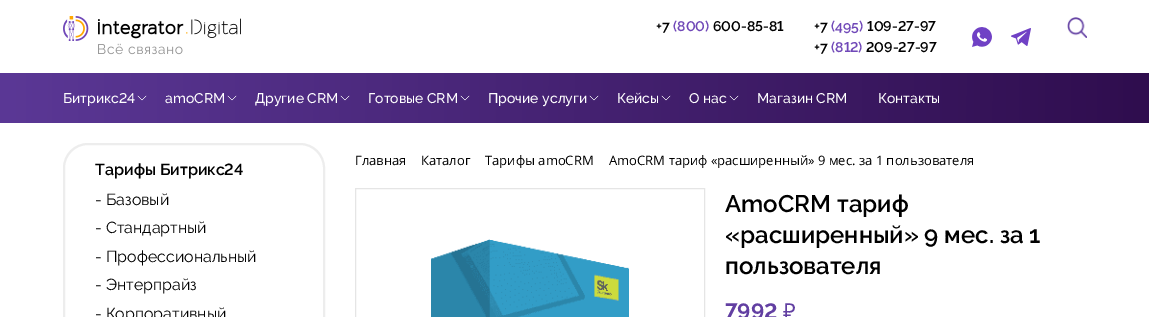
%!PS-Adobe-3.0
%%BoundingBox: 0 0 1149 317
%%LanguageLevel: 3
%%Pages: 1
%%EndComments
%%BeginProlog
/setink { dup -16 bitshift 255 div exch dup -8 bitshift 255 and 255 div exch 255 and 255 div setrgbcolor } def
/usefont { [ exch dup neg 0 0 3 -1 roll 0 0 ] selectfont } def
/rrect { 5 dict begin { /r /h /w /y /x } { exch def } forall
  x r add y moveto x w add y 2 copy h add r arct x w add y h add x 1 index r arct
  x y h add x y r arct x y 2 copy exch w add exch r arct closepath end } def
/drawimage { 5 dict begin { /h /w /y /x /name } { exch def } forall
  gsave x y translate w h scale
  w h 8 [w 0 0 h 0 0] name (r) file false 3 colorimage grestore end } def
%%EndProlog
%%BeginSetup
<< /PageSize [1149 317] >> setpagedevice
%%EndSetup
%%Page: 1 1
0 317 translate 1 -1 scale
4 setmiterlimit
16#FFFFFF setink
0 0 1149 317 rectfill
(img1.raw) 63 16 178 39 drawimage
/Raleway-SemiBold 14 usefont
16#000000 setink
656 31 moveto (+7) show
/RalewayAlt-SemiBold 14 usefont
16#7048B8 setink
673 31 moveto (\(800\)) show
16#000000 setink
713 31 moveto (600-85-81) show
/Raleway-SemiBold 14 usefont
814 31 moveto (+7) show
16#7048B8 setink
831 31 moveto (\(495\)) show
/RalewayAlt-SemiBold 14 usefont
16#000000 setink
867 31 moveto (109-27-97) show
/Raleway-SemiBold 14 usefont
814 52 moveto (+7) show
/RalewayAlt-SemiBold 14 usefont
16#7048B8 setink
831 52 moveto (\(812\)) show
16#000000 setink
866 52 moveto (209-27-97) show
(img2.raw) 972 27 20 20 drawimage
(img3.raw) 1011 28 20 18 drawimage
(img4.raw) 1067 17 20 21 drawimage
gsave 0 73 moveto 1149 73 lineto 1149 123 lineto 0 123 lineto closepath clip newpath
<< /ShadingType 2 /ColorSpace /DeviceRGB /Coords [-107 91 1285 105] /Extend [true true] /Function << /FunctionType 2 /Domain [0 1] /C0 [0.373 0.235 0.616] /C1 [0.165 0.031 0.271] /N 1 >> >> shfill grestore
/RalewayAlt-Medium 14 usefont
16#FFFFFF setink
63 103 moveto (Битрикс24) show
(img5.raw) 137 95 10 6 drawimage
/Raleway-Medium 14 usefont
165 103 moveto (amoCRM) show
(img6.raw) 227 95 10 6 drawimage
255 103 moveto (Другие CRM) show
(img7.raw) 340 95 10 6 drawimage
368 103 moveto (Готовые CRM) show
(img8.raw) 460 95 10 6 drawimage
488 103 moveto (Прочие услуги) show
(img9.raw) 589 95 10 6 drawimage
617 103 moveto (Кейсы) show
(img10.raw) 661 95 10 6 drawimage
689 103 moveto (О нас) show
(img11.raw) 729 95 10 6 drawimage
757 103 moveto (Магазин CRM) show
878 103 moveto (Контакты) show
16#EDEDED setink
2 setlinewidth
64 144 260 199 24 rrect stroke
/RalewayAlt-SemiBold 16 usefont
16#000000 setink
95 175 moveto (Тарифы Битрикс24) show
/Raleway-Regular 16 usefont
[
    [(- Базовый) 95 205]
    [(- Стандартный) 95 233]
    [(- Профессиональный) 95 262]
    [(- Энтерпрайз) 95 290]
    [(- Корпоративный) 95 319]
] { aload pop moveto show } forall
/OpenSans-Regular 13 usefont
[
    [(Главная) 355 165]
    [(Каталог) 421 165]
    [(Тарифы amoCRM) 485 165]
    [(AmoCRM тариф «расширенный» 9 мес. за 1 пользователя) 609 165]
] { aload pop moveto show } forall
16#E5E5E5 setink
1 setlinewidth
355.5 188.5 349 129 rectstroke
(img12.raw) 431 239 198 78 drawimage
/Raleway-SemiBold 24 usefont
16#000000 setink
[
    [(AmoCRM тариф) 725 212]
    [(«расширенный» 9 мес. за 1) 725 243]
    [(пользователя) 725 274]
] { aload pop moveto show } forall
/RalewayAlt-Bold 22 usefont
16#623FA2 setink
725 319 moveto (7992) show
/NotoSans-Regular 22 usefont
783 319 moveto (₽) show
showpage
%%EOF
